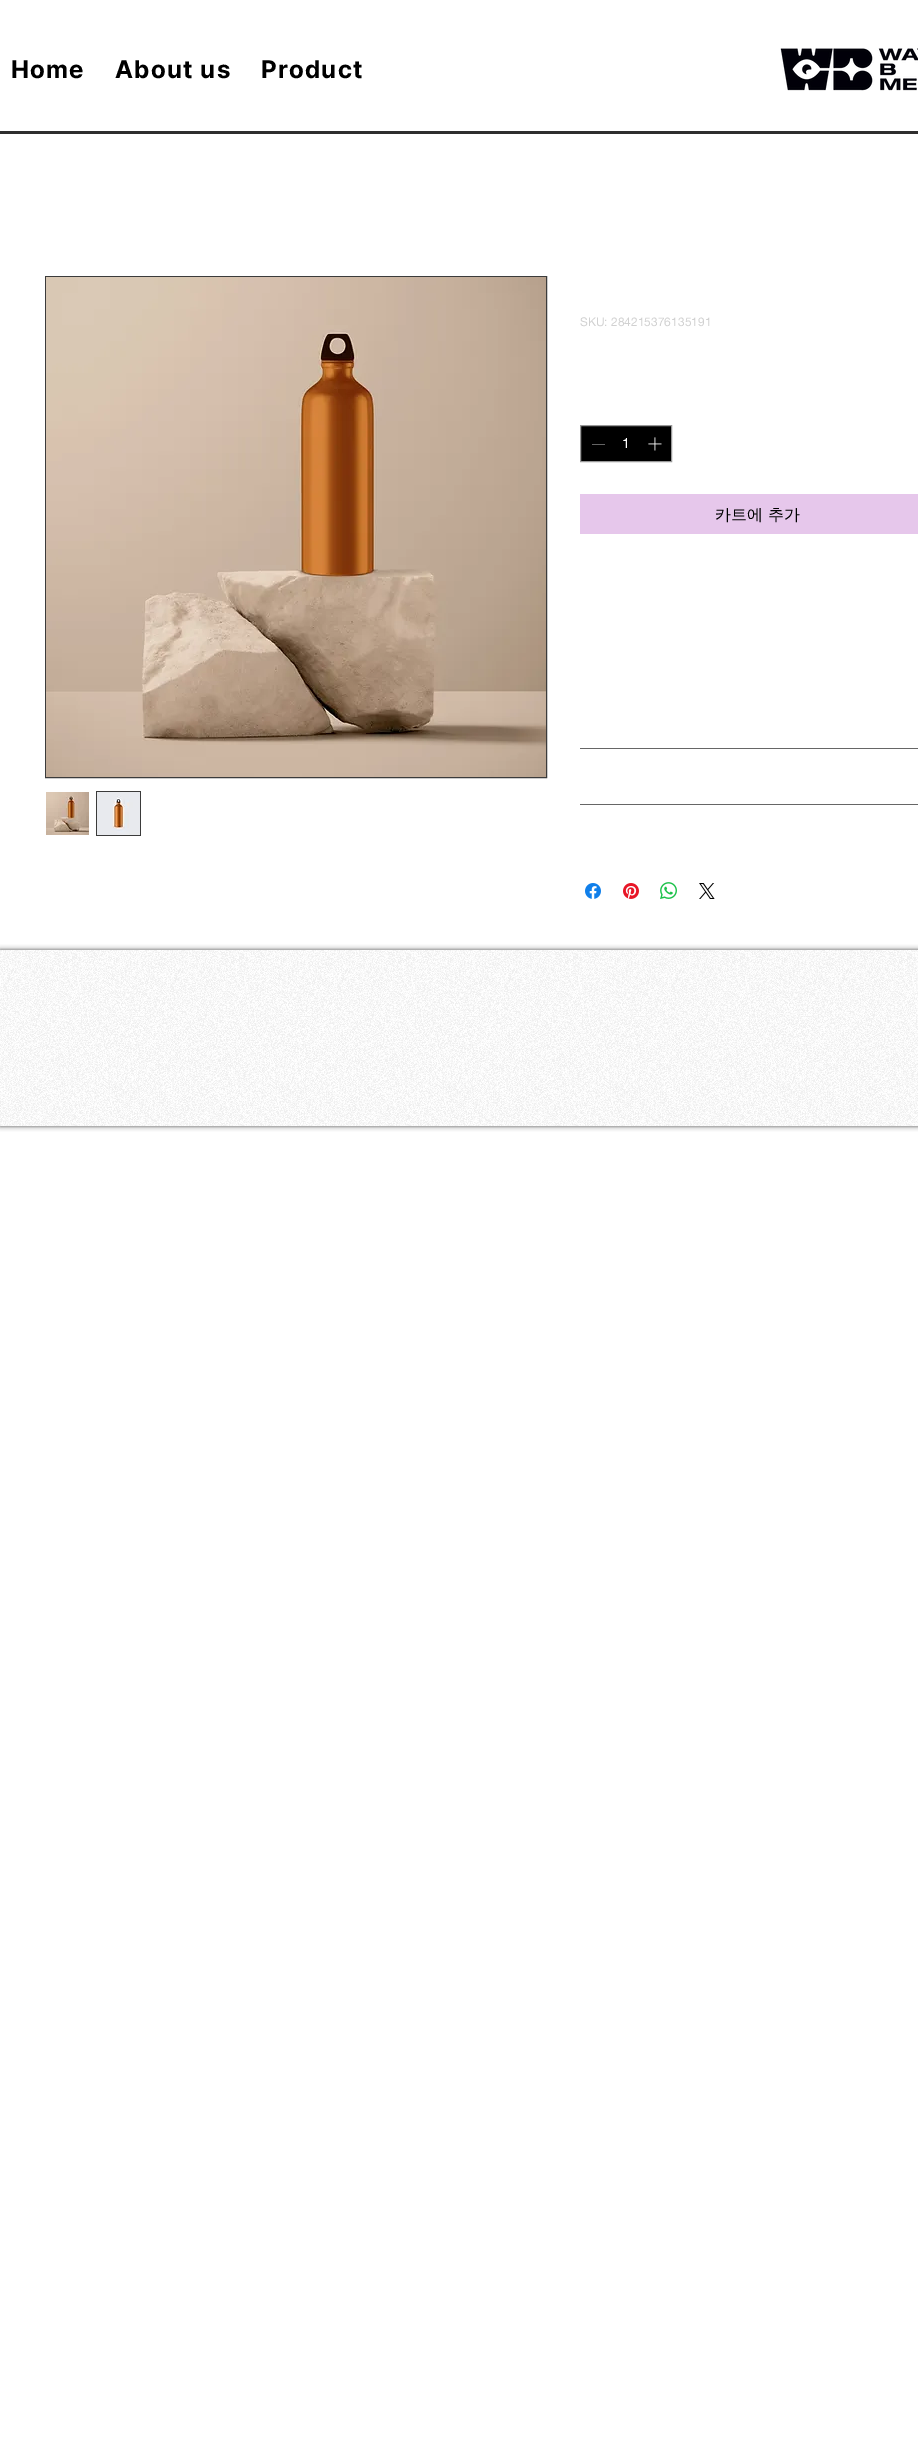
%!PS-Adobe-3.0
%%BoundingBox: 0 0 918 2443
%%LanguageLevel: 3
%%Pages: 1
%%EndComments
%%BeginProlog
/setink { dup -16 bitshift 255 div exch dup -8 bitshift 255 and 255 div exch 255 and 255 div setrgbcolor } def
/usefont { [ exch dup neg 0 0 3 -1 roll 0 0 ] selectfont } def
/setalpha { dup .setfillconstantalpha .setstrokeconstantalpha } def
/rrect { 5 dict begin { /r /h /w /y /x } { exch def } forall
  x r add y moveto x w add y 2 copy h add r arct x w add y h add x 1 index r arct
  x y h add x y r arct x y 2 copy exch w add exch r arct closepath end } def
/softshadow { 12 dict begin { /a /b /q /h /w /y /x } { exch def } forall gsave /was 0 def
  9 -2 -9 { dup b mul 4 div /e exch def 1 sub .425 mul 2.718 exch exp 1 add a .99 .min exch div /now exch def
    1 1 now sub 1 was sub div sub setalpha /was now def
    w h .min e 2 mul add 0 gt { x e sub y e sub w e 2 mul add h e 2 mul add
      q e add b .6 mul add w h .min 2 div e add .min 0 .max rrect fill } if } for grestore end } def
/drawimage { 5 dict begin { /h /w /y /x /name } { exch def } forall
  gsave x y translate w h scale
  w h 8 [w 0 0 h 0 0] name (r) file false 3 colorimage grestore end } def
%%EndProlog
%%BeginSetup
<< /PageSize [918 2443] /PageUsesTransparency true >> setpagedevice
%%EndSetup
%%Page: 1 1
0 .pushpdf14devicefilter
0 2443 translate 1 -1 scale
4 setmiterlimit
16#FFFFFF setink
0 0 918 2443 rectfill
/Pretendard-Bold 25 usefont
16#000000 setink
11 78 moveto 1.25 0 (Home) ashow
115 78 moveto 1.25 0 (About us) ashow
261 78 moveto 1.25 0 (Product) ashow
(img1.raw) 780 48 138 43 drawimage
16#2F2E2E setink
0 131 918 3 rectfill
16#3B3B3B setink
45.5 276.5 501 501 rectstroke
(img2.raw) 46 277 500 500 drawimage
(img3.raw) 46 792 43 43 drawimage
96 791 45 45 rectfill
(img4.raw) 97 792 43 43 drawimage
/helveticaneue-Regular 12 usefont
16#D1D1D1 setink
580 326 moveto (SKU: 284215376135191) show
16#000000 setink
580.5 425.5 moveto 671.5 425.5 lineto 671.5 461.5 lineto 580.5 461.5 lineto closepath gsave fill grestore
16#999999 setink
stroke
16#646464 setink
592 444 13 1 rectfill
/helveticaneue-Regular 14 usefont
16#FFFFFF setink
622 448 moveto (1) show
(img5.raw) 648 437 14 14 drawimage
16#E6C7EB setink
580 494 338 40 rectfill
/WenQuanYiZenHei-Medium 16 usefont
16#000000 setink
715 520 moveto (카트에 추가) show
16#666666 setink
580 748 338 1 rectfill
580 804 338 1 rectfill
(img6.raw) 585 883 16 16 drawimage
(img7.raw) 623 883 16 16 drawimage
(img8.raw) 660 882 17 17 drawimage
(img9.raw) 699 883 16 16 drawimage
gsave
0 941 moveto 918 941 lineto 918 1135 lineto 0 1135 lineto closepath 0 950 moveto 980 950 lineto 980 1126 lineto 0 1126 lineto closepath eoclip newpath
16#000000 setink
0 950 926 176 0 2.5 0.7 softshadow
grestore
(img10.raw) 0 950 918 176 drawimage
.poppdf14devicefilter showpage
%%EOF
